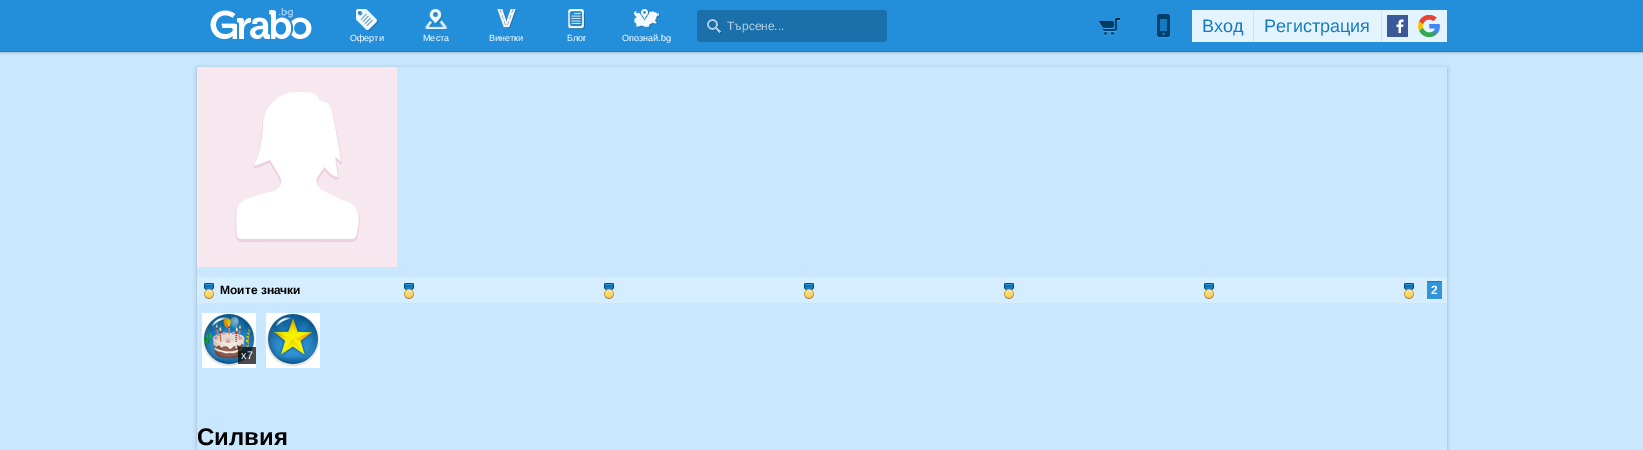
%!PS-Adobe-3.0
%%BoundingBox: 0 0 1643 450
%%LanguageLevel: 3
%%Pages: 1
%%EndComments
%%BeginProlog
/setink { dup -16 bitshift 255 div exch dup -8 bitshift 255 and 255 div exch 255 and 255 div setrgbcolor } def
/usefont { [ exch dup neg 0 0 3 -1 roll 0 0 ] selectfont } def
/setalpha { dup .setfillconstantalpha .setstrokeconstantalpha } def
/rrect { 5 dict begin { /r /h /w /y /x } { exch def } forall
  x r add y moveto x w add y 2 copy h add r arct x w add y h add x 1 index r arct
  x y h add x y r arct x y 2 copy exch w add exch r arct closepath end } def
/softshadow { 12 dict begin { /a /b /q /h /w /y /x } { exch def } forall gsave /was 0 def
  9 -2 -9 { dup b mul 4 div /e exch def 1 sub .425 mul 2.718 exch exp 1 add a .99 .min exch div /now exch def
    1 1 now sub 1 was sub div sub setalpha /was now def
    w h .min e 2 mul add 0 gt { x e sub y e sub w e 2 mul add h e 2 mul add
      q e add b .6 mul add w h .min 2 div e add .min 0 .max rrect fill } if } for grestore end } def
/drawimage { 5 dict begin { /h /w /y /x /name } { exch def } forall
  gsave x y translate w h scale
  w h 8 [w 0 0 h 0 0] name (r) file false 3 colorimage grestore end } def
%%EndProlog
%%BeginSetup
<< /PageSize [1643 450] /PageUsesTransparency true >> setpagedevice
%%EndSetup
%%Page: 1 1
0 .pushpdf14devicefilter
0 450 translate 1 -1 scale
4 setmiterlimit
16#C9E7FF setink
0 0 1643 450 rectfill
16#000000 setink
0 1 1643 52 0 1 0.2 softshadow
16#238FDB setink
0 0 1643 51 rectfill
16#197DC1 setink
0 51 1643 1 rectfill
(img1.raw) 210 8 102 31 drawimage
16#1B70AB setink
697 10 190 32 3 rrect fill
(img2.raw) 707 19 15 15 drawimage
/LiberationSans-Regular 12 usefont
16#AFCDE2 setink
727 30 moveto (Търсене...) show
(img3.raw) 356 9 22 23 drawimage
/LiberationSans-Regular 9 usefont
16#FFFFFF setink
350 41 moveto (Оферти) show
(img4.raw) 424 9 25 22 drawimage
423 41 moveto (Места) show
(img5.raw) 497 9 20 20 drawimage
489 41 moveto (Винетки) show
(img6.raw) 568 9 17 21 drawimage
567 41 moveto (Блог) show
(img7.raw) 634 9 26 20 drawimage
622 41 moveto (Опознай.bg) show
(img8.raw) 1099 18 21 18 drawimage
(img9.raw) 1157 14 13 24 drawimage
[
    [1253 10 1 32 16#C2E6FD]
    [1381 10 1 32 16#C2E6FD]
    [1382 10 65 32 16#E3F4FF]
] { aload pop setink rectfill } forall
(img10.raw) 1418 15 22 22 drawimage
1192 10 61 32 rectfill
/LiberationSans-Regular 18 usefont
16#167BBF setink
1202 32 moveto (Вход) show
16#E3F4FF setink
1254 10 127 32 rectfill
16#167BBF setink
1264 32 moveto (Регистрация) show
(img11.raw) 1387 15 21 22 drawimage
gsave
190 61 moveto 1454 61 lineto 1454 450 lineto 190 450 lineto closepath 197 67 moveto 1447 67 lineto 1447 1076 lineto 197 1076 lineto closepath eoclip newpath
16#000000 setink
197 68 1250 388 0 2 0.25 softshadow
grestore
(img12.raw) 197 67 200 200 drawimage
(img13.raw) 197 277 1250 26 drawimage
/LiberationSans-Bold 12 usefont
16#000000 setink
220 294 moveto (Моите значки) show
[
    [1427 282 15 17 16#3295DA]
    [1427 281 15 1 16#2878B0]
    [1427 299 15 1 16#E8F6FF]
] { aload pop setink rectfill } forall
16#FFFFFF setink
1431 294 moveto (2) show
(img15.raw) 204 314 50 50 drawimage
(img14.raw) 202 313 54 55 drawimage
0.71 setalpha
16#000000 setink
238 347 3 17 rectfill
241 347 15 17 rectfill
/LiberationSans-Regular 11 usefont
1 setalpha
16#FFFFFF setink
241 359 moveto (x7) show
(img17.raw) 268 314 50 50 drawimage
(img16.raw) 266 313 54 55 drawimage
/LiberationSans-Bold 24 usefont
16#000000 setink
197 445 moveto (Силвия) show
.poppdf14devicefilter showpage
%%EOF
